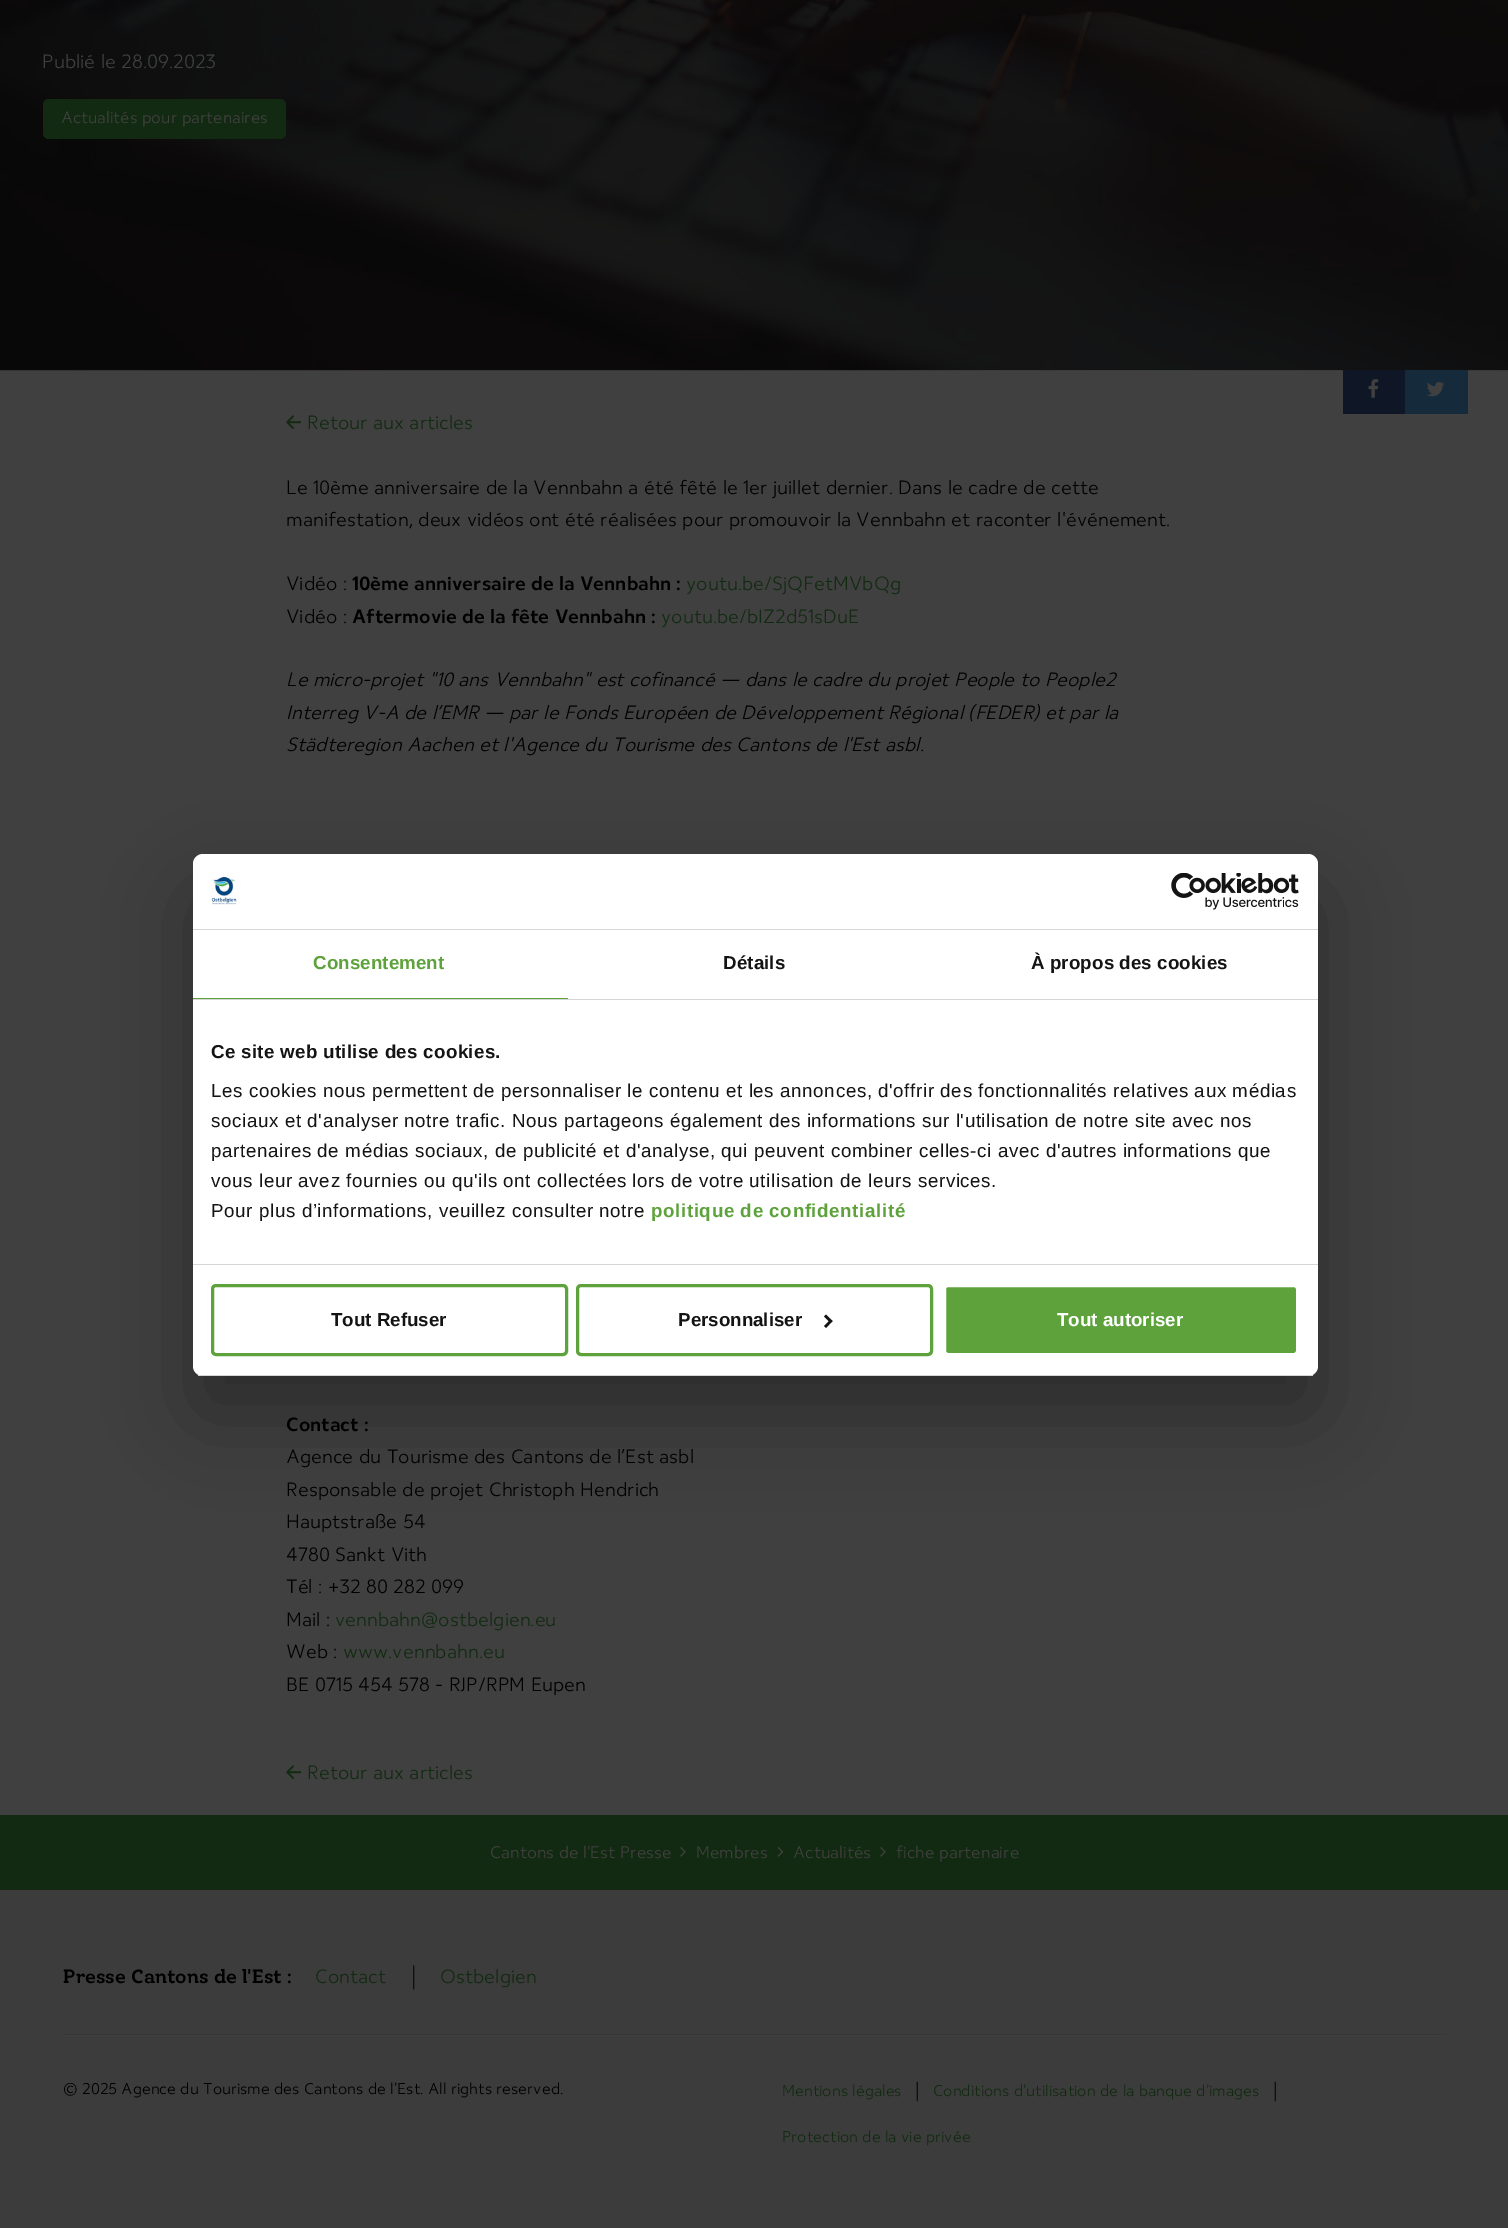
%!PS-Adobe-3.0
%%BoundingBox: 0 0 1508 2228
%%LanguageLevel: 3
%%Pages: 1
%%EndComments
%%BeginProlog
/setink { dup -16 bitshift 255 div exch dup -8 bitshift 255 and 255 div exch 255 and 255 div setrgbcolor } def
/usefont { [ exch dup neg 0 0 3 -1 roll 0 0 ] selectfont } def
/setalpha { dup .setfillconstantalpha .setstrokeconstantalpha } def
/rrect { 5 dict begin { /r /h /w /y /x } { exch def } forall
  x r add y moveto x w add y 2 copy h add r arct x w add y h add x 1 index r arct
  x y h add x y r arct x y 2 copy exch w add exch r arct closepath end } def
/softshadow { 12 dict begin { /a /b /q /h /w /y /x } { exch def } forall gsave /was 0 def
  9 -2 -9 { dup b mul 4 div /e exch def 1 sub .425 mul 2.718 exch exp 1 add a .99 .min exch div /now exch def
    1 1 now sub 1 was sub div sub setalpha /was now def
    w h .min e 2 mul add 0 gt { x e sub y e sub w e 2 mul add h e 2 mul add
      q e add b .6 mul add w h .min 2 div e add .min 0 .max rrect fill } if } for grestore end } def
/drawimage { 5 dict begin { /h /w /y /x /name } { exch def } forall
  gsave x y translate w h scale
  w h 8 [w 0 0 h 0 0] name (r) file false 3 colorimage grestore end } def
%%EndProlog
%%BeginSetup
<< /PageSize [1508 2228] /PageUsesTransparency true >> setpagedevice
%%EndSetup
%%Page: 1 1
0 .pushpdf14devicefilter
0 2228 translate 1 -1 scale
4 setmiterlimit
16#404040 setink
0 0 1508 2228 rectfill
(img1.raw) 0 0 1508 371 drawimage
/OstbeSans-Regular 20 usefont
42 68 moveto (Publié le 28.09.2023) show
16#122A11 setink
43 99 243 40 6 rrect fill
/OstbeSans-Regular 17.1 usefont
16#404040 setink
61 123 moveto (Actualités pour partenaires) show
16#0F1626 setink
1343 370 62 44 rectfill
(img2.raw) 1368 379 11 19 drawimage
16#152B3C setink
1405 370 63 44 rectfill
(img3.raw) 1427 382 18 15 drawimage
(img4.raw) 286 415 16 14 drawimage
/OstbeSans-Regular 20 usefont
16#122A11 setink
307 429 moveto (Retour aux articles) show
16#000000 setink
[
    [(Le 10ème anniversaire de la Vennbahn a été fêté le 1er juillet dernier. Dans le cadre de cette) 286 494]
    [(manifestation, deux vidéos ont été réalisées pour promouvoir la Vennbahn et raconter l'événement.) 286 526]
    [(Vidéo :) 286 590]
] { aload pop moveto show } forall
/OstbeSans-Bold 20 usefont
352 590 moveto (10ème anniversaire de la Vennbahn :) show
/OstbeSans-Regular 20 usefont
16#122A11 setink
686 590 moveto (youtu.be/SjQFetMVbQg) show
16#000000 setink
286 623 moveto (Vidéo :) show
/OstbeSans-Bold 20 usefont
352 623 moveto (Aftermovie de la fête Vennbahn :) show
/OstbeSans-Regular 20 usefont
16#122A11 setink
661 623 moveto (youtu.be/bIZ2d51sDuE) show
/OstbeSans-Italic 20 usefont
16#000000 setink
[
    [(Le micro-projet "10 ans Vennbahn" est cofinancé — dans le cadre du projet People to People2) 286 686]
    [(Interreg V-A de l’EMR — par le Fonds Européen de Développement Régional \(FEDER\) et par la) 286 719]
    [(Städteregion Aachen et l'Agence du Tourisme des Cantons de l'Est asbl.) 286 751]
] { aload pop moveto show } forall
/OstbeSans-Bold 20 usefont
286 1431 moveto (Contact :) show
/OstbeSans-Regular 20 usefont
[
    [(Agence du Tourisme des Cantons de l’Est asbl) 286 1463]
    [(Responsable de projet Christoph Hendrich) 286 1496]
    [(Hauptstraße 54) 286 1528]
    [(4780 Sankt Vith) 286 1561]
    [(Tél : +32 80 282 099) 286 1593]
    [(Mail :) 286 1626]
] { aload pop moveto show } forall
16#122A11 setink
335 1626 moveto (vennbahn@ostbelgien.eu) show
16#000000 setink
286 1658 moveto (Web :) show
16#122A11 setink
343 1658 moveto (www.vennbahn.eu) show
16#000000 setink
286 1691 moveto (BE 0715 454 578 - RJP/RPM Eupen) show
(img4.raw) 286 1765 16 14 drawimage
16#122A11 setink
307 1779 moveto (Retour aux articles) show
16#000000 setink
193 894 1125 522 10 42.5 0.3 softshadow
16#FFFFFF setink
193 854 1125 522 10 rrect fill
16#D6D6D6 setink
193 929 1125 1 rectfill
(img5.raw) 211 876 26 29 drawimage
(img6.raw) 1171 873 128 37 drawimage
193 999 1125 1 rectfill
16#5DA23B setink
193 998 375 1 rectfill
/LiberationSans-Bold 18.75 usefont
313 969 moveto 0.1 0 (Consentement) ashow
16#141414 setink
723 969 moveto 0.1 0 (Détails) ashow
1031 969 moveto 0.1 0 (À propos des cookies) ashow
16#D6D6D6 setink
193 1264 1125 1 rectfill
16#141414 setink
211 1058 moveto 0.3 0 (Ce site web utilise des cookies.) ashow
/LiberationSans-Regular 18.75 usefont
211 1097 moveto 0.62 0 (Les cookies nous permettent de personnaliser le contenu et les annonces, d'offrir des fonctionnalités relatives aux médias) ashow
211 1127 moveto 0.62 0 (sociaux et d'analyser notre trafic. Nous partageons également des informations sur l'utilisation de notre site avec nos) ashow
211 1157 moveto 0.62 0 (partenaires de médias sociaux, de publicité et d'analyse, qui peuvent combiner celles-ci avec d'autres informations que) ashow
211 1187 moveto 0.62 0 (vous leur avez fournies ou qu'ils ont collectées lors de votre utilisation de leurs services.) ashow
211 1217 moveto 0.62 0 (Pour plus d’informations, veuillez consulter notre) ashow
/LiberationSans-Bold 18.75 usefont
16#5DA23B setink
651 1217 moveto 0.62 0 (politique de confidentialité) ashow
gsave
193 854 1125 522 10 rrect clip newpath
16#D6D6D6 setink
193 1375 1125 1 rectfill
grestore
3 setlinewidth
212.5 1285.5 354 69 3.5 rrect stroke
16#141414 setink
331 1326 moveto (Tout Refuser) show
16#5DA23B setink
577.5 1285.5 354 69 3.5 rrect stroke
16#141414 setink
678 1326 moveto (Personnaliser) show
826 1314.5 moveto 832.5 1321 lineto 830.5 1323 lineto 824 1316.5 lineto closepath fill
830.5 1319.5 moveto 832.5 1321 lineto 826 1328 lineto 824 1326 lineto closepath fill
16#5DA23B setink
944.5 1285.5 353 69 3.5 rrect gsave fill grestore
16#FFFFFF setink
stroke
1057 1326 moveto (Tout autoriser) show
16#122A11 setink
0 1815 1508 75 rectfill
/OstbeSans-Regular 17.5 usefont
16#404040 setink
490 1858 moveto (Cantons de l'Est Presse) show
(img7.raw) 680 1847 6 10 drawimage
696 1858 moveto (Membres) show
(img8.raw) 777 1847 7 10 drawimage
793 1858 moveto (Actualités) show
(img7.raw) 880 1847 6 10 drawimage
896 1858 moveto (fiche partenaire) show
16#3C3C3C setink
0 1890 1508 338 rectfill
/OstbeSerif-Bold 20 usefont
16#000000 setink
63 1983 moveto (Presse Cantons de l'Est :) show
/OstbeSans-Regular 20 usefont
16#122A11 setink
315 1983 moveto (Contact) show
16#000000 setink
411 1983 moveto (|) show
16#122A11 setink
440 1983 moveto (Ostbelgien) show
16#363636 setink
63 2034 1383 1 rectfill
16#404040 setink
63 2035 1383 1 rectfill
/OstbeSans-Regular 16.25 usefont
16#000000 setink
63 2094 moveto (© 2025 Agence du Tourisme des Cantons de l'Est. All rights reserved.) show
16#122A11 setink
782 2096 moveto (Mentions légales) show
16#000000 setink
915 2096 moveto (|) show
16#122A11 setink
933 2096 moveto (Conditions d'utilisation de la banque d'images) show
16#000000 setink
1273 2096 moveto (|) show
16#122A11 setink
782 2142 moveto (Protection de la vie privée) show
.poppdf14devicefilter showpage
%%EOF
